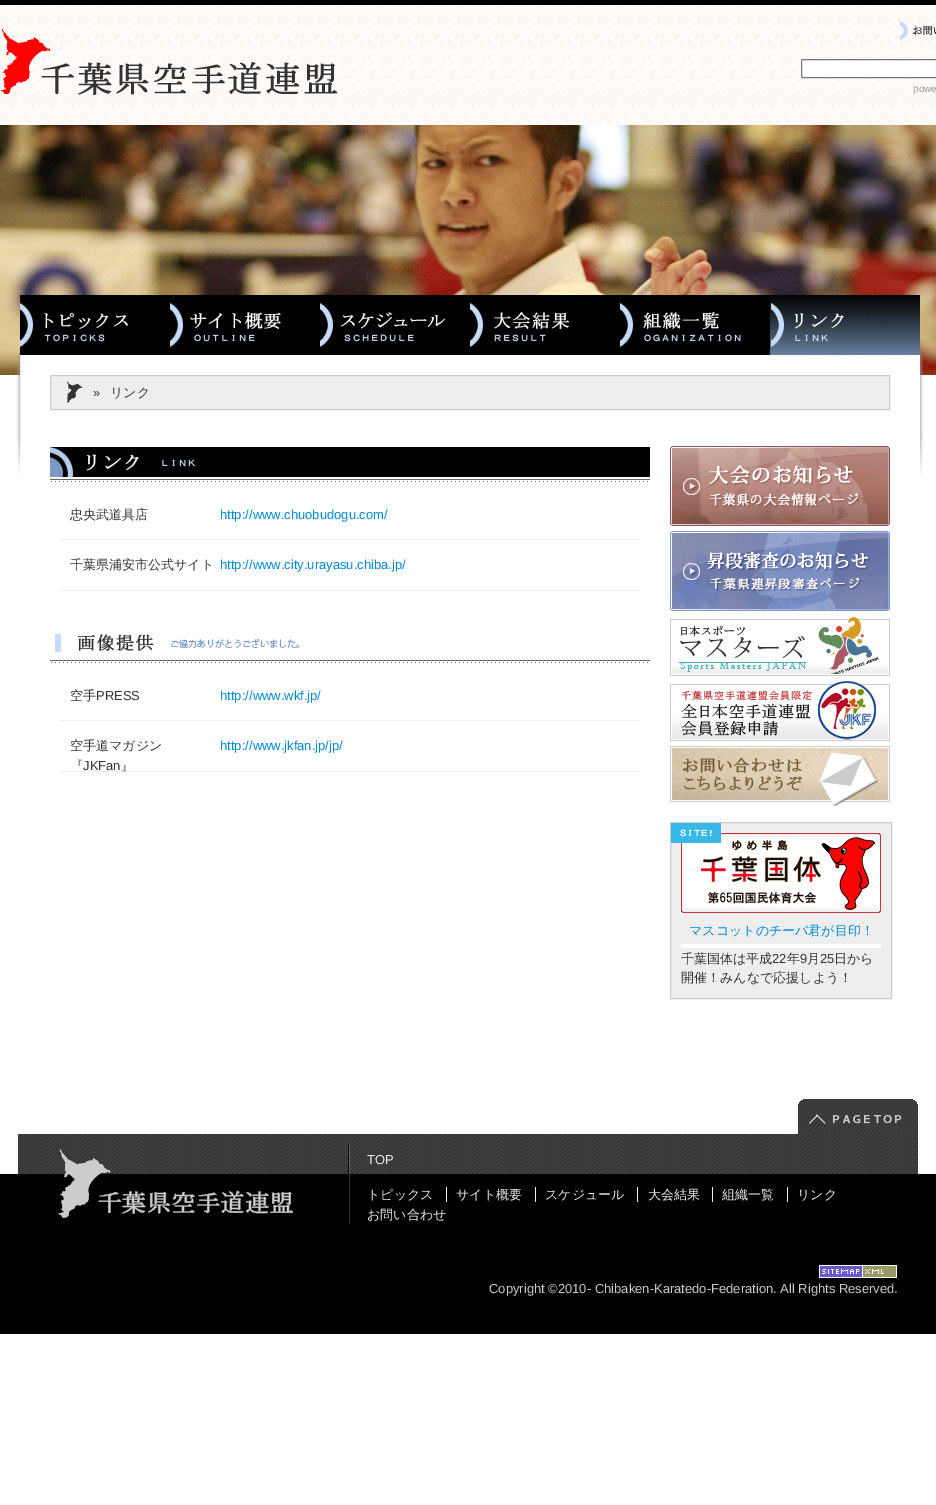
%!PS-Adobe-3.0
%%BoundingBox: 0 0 936 1505
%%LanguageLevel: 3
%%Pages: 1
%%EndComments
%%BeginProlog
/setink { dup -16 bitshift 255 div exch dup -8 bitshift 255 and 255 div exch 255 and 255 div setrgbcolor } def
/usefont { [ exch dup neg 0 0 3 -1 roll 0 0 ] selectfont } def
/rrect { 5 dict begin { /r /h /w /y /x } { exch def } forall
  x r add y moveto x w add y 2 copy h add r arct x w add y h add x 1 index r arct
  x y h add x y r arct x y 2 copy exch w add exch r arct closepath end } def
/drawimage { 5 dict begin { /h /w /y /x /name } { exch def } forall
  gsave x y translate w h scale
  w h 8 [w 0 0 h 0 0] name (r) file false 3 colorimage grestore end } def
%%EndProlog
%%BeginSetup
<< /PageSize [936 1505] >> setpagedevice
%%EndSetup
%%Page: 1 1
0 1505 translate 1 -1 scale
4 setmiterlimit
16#FFFFFF setink
0 0 936 1505 rectfill
16#000000 setink
0 0 936 5 rectfill
(img1.raw) 0 5 936 120 drawimage
(img2.raw) 0 29 338 66 drawimage
(img3.raw) 900 21 36 19 drawimage
16#FFFFFF setink
801.5 59.5 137 18 1.5 rrect gsave fill grestore
16#767676 setink
stroke
/LiberationSans-Regular 10 usefont
16#999999 setink
913 92 moveto (powe) show
(img4.raw) 0 125 936 250 drawimage
(img5.raw) 16 350 908 126 drawimage
(img6.raw) 20 295 150 60 drawimage
(img7.raw) 170 295 150 60 drawimage
(img8.raw) 320 295 150 60 drawimage
(img9.raw) 470 295 150 60 drawimage
(img10.raw) 620 295 150 60 drawimage
(img11.raw) 770 295 150 60 drawimage
16#EEEEEE setink
50.5 375.5 moveto 889.5 375.5 lineto 889.5 409.5 lineto 50.5 409.5 lineto closepath gsave fill grestore
16#CCCCCC setink
stroke
(img12.raw) 66 381 17 22 drawimage
/LiberationSans-Regular 13 usefont
16#333333 setink
93 397 moveto (») show
/WenQuanYiZenHei-Medium 13 usefont
110 397 moveto (リンク) show
(img13.raw) 50 447 600 35 drawimage
16#EEEEEE setink
60 539 580 1 rectfill
16#333333 setink
70 519 moveto (忠央武道具店) show
/LiberationSans-Regular 13 usefont
16#0089D2 setink
220 519 moveto (http://www.chuobudogu.com/) show
16#EEEEEE setink
60 590 580 1 rectfill
/WenQuanYiZenHei-Medium 13 usefont
16#333333 setink
70 569 moveto (千葉県浦安市公式サイト) show
/LiberationSans-Regular 13 usefont
16#0089D2 setink
220 569 moveto (http://www.city.urayasu.chiba.jp/) show
(img14.raw) 50 634 600 29 drawimage
16#EEEEEE setink
60 720 580 1 rectfill
/WenQuanYiZenHei-Medium 13 usefont
16#333333 setink
70 700 moveto (空手) show
/LiberationSans-Regular 13 usefont
96 700 moveto (PRESS) show
16#0089D2 setink
220 700 moveto (http://www.wkf.jp/) show
16#EEEEEE setink
60 771 580 1 rectfill
/WenQuanYiZenHei-Medium 13 usefont
16#333333 setink
70 750 moveto (空手道マガジン) show
70 770 moveto (『) show
/LiberationSans-Regular 13 usefont
83 770 moveto (JKFan) show
/WenQuanYiZenHei-Medium 13 usefont
121 770 moveto (』) show
/LiberationSans-Regular 13 usefont
16#0089D2 setink
220 750 moveto (http://www.jkfan.jp/jp/) show
(img15.raw) 670 446 220 80 drawimage
(img16.raw) 670 531 220 80 drawimage
(img17.raw) 670 617 220 59 drawimage
(img18.raw) 670 681 220 60 drawimage
(img19.raw) 670 746 220 60 drawimage
16#EEEEEE setink
670.5 822.5 moveto 891.5 822.5 lineto 891.5 998.5 lineto 670.5 998.5 lineto closepath gsave fill grestore
16#CCCCCC setink
stroke
(img21.raw) 681 833 200 80 drawimage
(img20.raw) 671 823 50 20 drawimage
/WenQuanYiZenHei-Medium 13 usefont
16#0089D2 setink
689 935 moveto (マスコットのチーバ君が目印！) show
16#FFFFFF setink
681 944 200 4 rectfill
16#333333 setink
681 963 moveto (千葉国体は平成) show
/LiberationSans-Regular 13 usefont
772 963 moveto (22) show
/WenQuanYiZenHei-Medium 13 usefont
787 963 moveto (年) show
/LiberationSans-Regular 13 usefont
800 963 moveto (9) show
/WenQuanYiZenHei-Medium 13 usefont
807 963 moveto (月) show
/LiberationSans-Regular 13 usefont
820 963 moveto (25) show
/WenQuanYiZenHei-Medium 13 usefont
834 963 moveto (日から) show
681 982 moveto (開催！みんなで応援しよう！) show
(img22.raw) 798 1099 120 35 drawimage
(img23.raw) 0 1134 936 200 drawimage
(img24.raw) 18 1134 900 100 drawimage
(img25.raw) 58 1149 235 69 drawimage
/LiberationSans-Regular 13 usefont
16#EEEEEE setink
367 1164 moveto (TOP) show
/WenQuanYiZenHei-Medium 13 usefont
367 1199 moveto (トピックス) show
456 1199 moveto (サイト概要) show
446 1187 1 15 rectfill
545 1199 moveto (スケジュール) show
535 1187 1 15 rectfill
648 1199 moveto (大会結果) show
637 1187 1 15 rectfill
722 1199 moveto (組織一覧) show
712 1187 1 15 rectfill
797 1199 moveto (リンク) show
787 1187 1 15 rectfill
367 1219 moveto (お問い合わせ) show
16#000000 setink
349 1224 1 10 rectfill
(img26.raw) 819 1265 78 13 drawimage
/LiberationSans-Regular 13 usefont
16#CCCCCC setink
489 1293 moveto (Copyright ©2010- Chibaken-Karatedo-Federation. All Rights Reserved.) show
showpage
%%EOF
